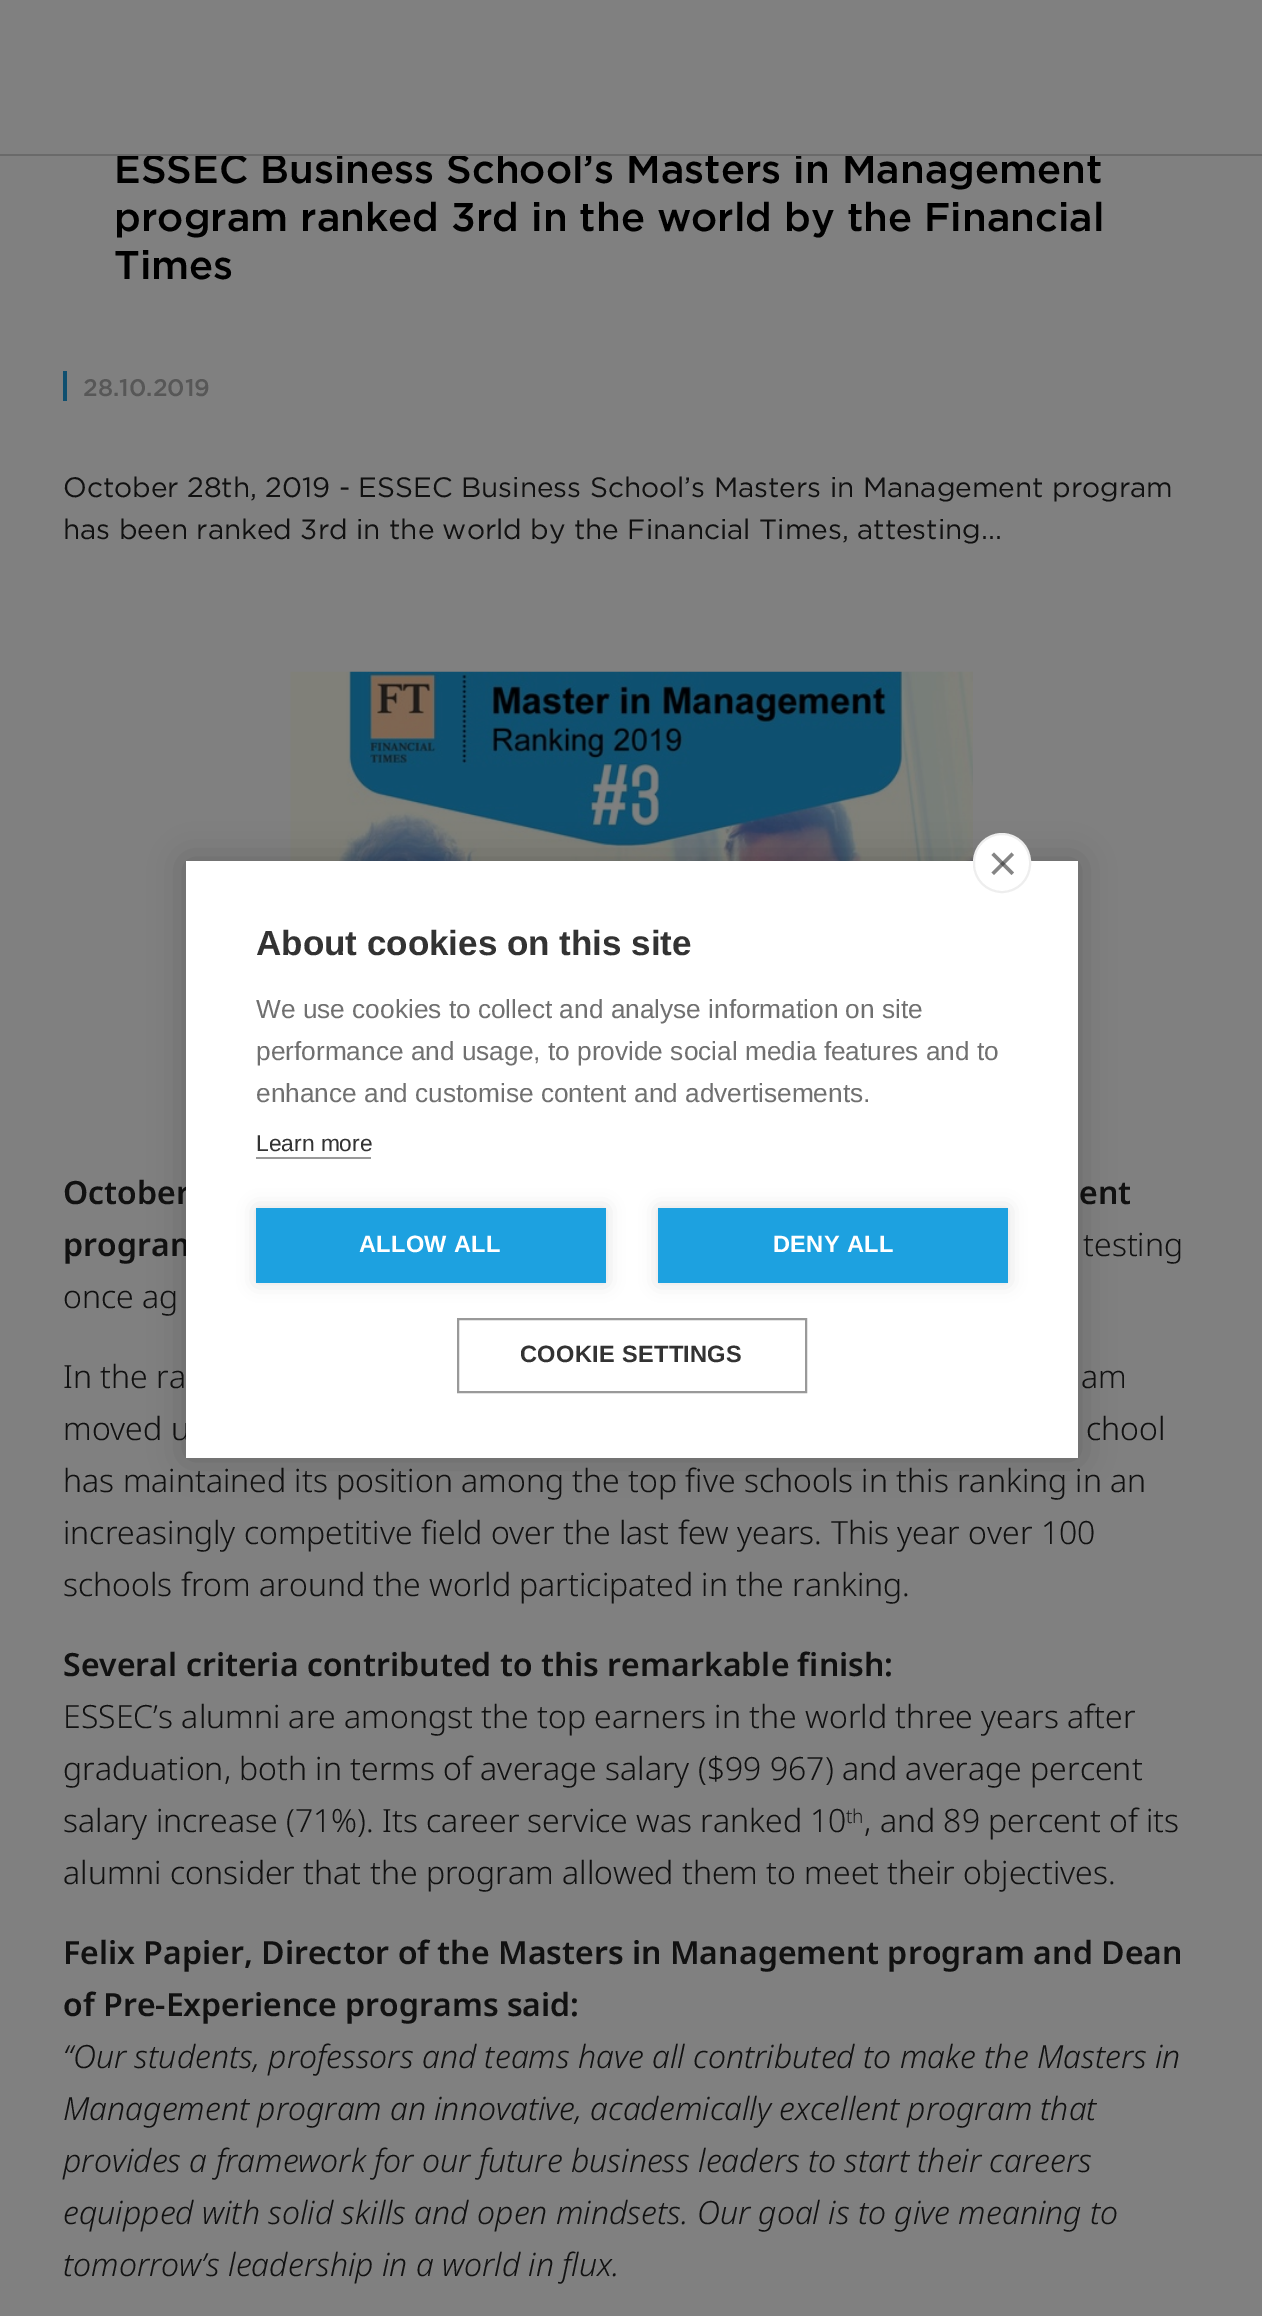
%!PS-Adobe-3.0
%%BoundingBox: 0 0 1262 2316
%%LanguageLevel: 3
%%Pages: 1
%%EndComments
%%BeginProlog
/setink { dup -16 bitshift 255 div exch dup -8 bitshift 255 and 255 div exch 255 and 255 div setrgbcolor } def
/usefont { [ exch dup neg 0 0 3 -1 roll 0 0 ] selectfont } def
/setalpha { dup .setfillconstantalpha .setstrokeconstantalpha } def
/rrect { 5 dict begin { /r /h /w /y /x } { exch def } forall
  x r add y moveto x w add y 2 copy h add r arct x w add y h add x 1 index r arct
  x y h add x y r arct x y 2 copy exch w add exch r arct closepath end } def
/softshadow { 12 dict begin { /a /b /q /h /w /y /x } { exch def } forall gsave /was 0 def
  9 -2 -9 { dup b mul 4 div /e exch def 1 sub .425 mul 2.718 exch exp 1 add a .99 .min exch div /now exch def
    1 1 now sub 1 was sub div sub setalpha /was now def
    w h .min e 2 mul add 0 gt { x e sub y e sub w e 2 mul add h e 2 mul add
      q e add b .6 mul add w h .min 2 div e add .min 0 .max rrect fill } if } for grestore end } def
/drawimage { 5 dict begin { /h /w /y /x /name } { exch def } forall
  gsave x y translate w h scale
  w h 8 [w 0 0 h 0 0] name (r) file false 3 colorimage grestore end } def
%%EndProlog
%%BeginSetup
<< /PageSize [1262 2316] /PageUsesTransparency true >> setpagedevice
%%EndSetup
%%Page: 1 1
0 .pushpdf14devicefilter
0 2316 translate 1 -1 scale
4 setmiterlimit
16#808080 setink
0 0 1262 2316 rectfill
/Gotham-Medium 40 usefont
16#000000 setink
114 183 moveto (ESSEC Business School’s Masters in Management) show
16#808080 setink
497 153 83 1 rectfill
16#6A6A6A setink
0 154 1262 2 rectfill
16#000000 setink
114 231 moveto (program ranked 3rd in the world by the Financial) show
114 279 moveto (Times) show
16#0F4F6F setink
63 371 4 30 rectfill
/Gotham-Medium 24 usefont
16#575757 setink
83 396 moveto (28.10.2019) show
/Gotham-Regular 28 usefont
16#111111 setink
63 497 moveto (October 28th, 2019 - ESSEC Business School’s Masters in Management program) show
63 539 moveto (has been ranked 3rd in the world by the Financial Times, attesting...) show
(img1.raw) 290 671 683 190 drawimage
/NotoSans-SemiBold 32 usefont
[
    [(October) 63 1204]
    [(ent) 1079 1204]
    [(program) 63 1256]
] { aload pop moveto show } forall
/NotoSans-Light 32 usefont
[
    [(testing) 1083 1256]
    [(once ag) 63 1308]
    [(In the ra) 63 1388]
    [(am) 1081 1388]
    [(moved u) 63 1440]
    [(chool) 1086 1440]
    [(has maintained its position among the top five schools in this ranking in an) 63 1492]
    [(increasingly competitive field over the last few years. This year over 100) 63 1544]
    [(schools from around the world participated in the ranking.) 63 1596]
] { aload pop moveto show } forall
/NotoSans-SemiBold 32 usefont
63 1676 moveto (Several criteria contributed to this remarkable finish:) show
/NotoSans-Light 32 usefont
[
    [(ESSEC’s alumni are amongst the top earners in the world three years after) 63 1728]
    [(graduation, both in terms of average salary \($99 967\) and average percent) 63 1780]
    [(salary increase \(71%\). Its career service was ranked 10) 63 1832]
] { aload pop moveto show } forall
/NotoSans-Light 19 usefont
846 1823 moveto (th) show
/NotoSans-Light 32 usefont
864 1832 moveto (, and 89 percent of its) show
63 1884 moveto (alumni consider that the program allowed them to meet their objectives.) show
/NotoSans-SemiBold 32 usefont
63 1964 moveto (Felix Papier, Director of the Masters in Management program and Dean) show
63 2016 moveto (of Pre-Experience programs said:) show
/NotoSans-LightItalic 32 usefont
63 2068 moveto (“Our students, professors and teams have all contributed to make the Masters in) show
63 2120 moveto -0.25 0 32 (Management program an innovative, academically excellent program that) widthshow
[
    [(provides a framework for our future business leaders to start their careers) 63 2172]
    [(equipped with solid skills and open mindsets. Our goal is to give meaning to) 63 2224]
    [(tomorrow’s leadership in a world in flux.) 63 2276]
] { aload pop moveto show } forall
16#000000 setink
186 861 892 597 0 17.5 0.2 softshadow
16#FFFFFF setink
186 861 892 597 rectfill
974 834 56 58 28 rrect gsave fill grestore
16#EEEEEE setink
2 setlinewidth
stroke
16#858585 setink
991.5 872.5 moveto 1011.5 852.5 lineto 1014 855 lineto 994 875 lineto closepath fill
0.6 setalpha
16#333333 setink
994 852.5 moveto 1014 872.5 lineto 1011.5 875 lineto 991.5 855 lineto closepath fill
/LiberationSans-Bold 35 usefont
1 setalpha
256 955 moveto (About cookies on this site) show
/LiberationSans-Regular 26.25 usefont
16#707070 setink
[
    [(We use cookies to collect and analyse information on site) 256 1018]
    [(performance and usage, to provide social media features and to) 256 1060]
    [(enhance and customise content and advertisements.) 256 1102]
] { aload pop moveto show } forall
/LiberationSans-Regular 22.75 usefont
16#333333 setink
256 1151 moveto (Learn more) show
16#999999 setink
256 1157 115 2 rectfill
16#000000 setink
256 1208 350 75 0 9 0.12 softshadow
16#1DA1E0 setink
256 1208 350 75 rectfill
/LiberationSans-Bold 23.6 usefont
16#FFFFFF setink
359 1252 moveto 0.3 0 (ALLOW ALL) ashow
16#000000 setink
658 1208 350 75 0 9 0.12 softshadow
16#1DA1E0 setink
658 1208 350 75 rectfill
16#FFFFFF setink
773 1252 moveto 0.3 0 (DENY ALL) ashow
16#999999 setink
458 1319 348 73 rectstroke
16#333333 setink
520 1362 moveto 0.3 0 (COOKIE SETTINGS) ashow
.poppdf14devicefilter showpage
%%EOF
